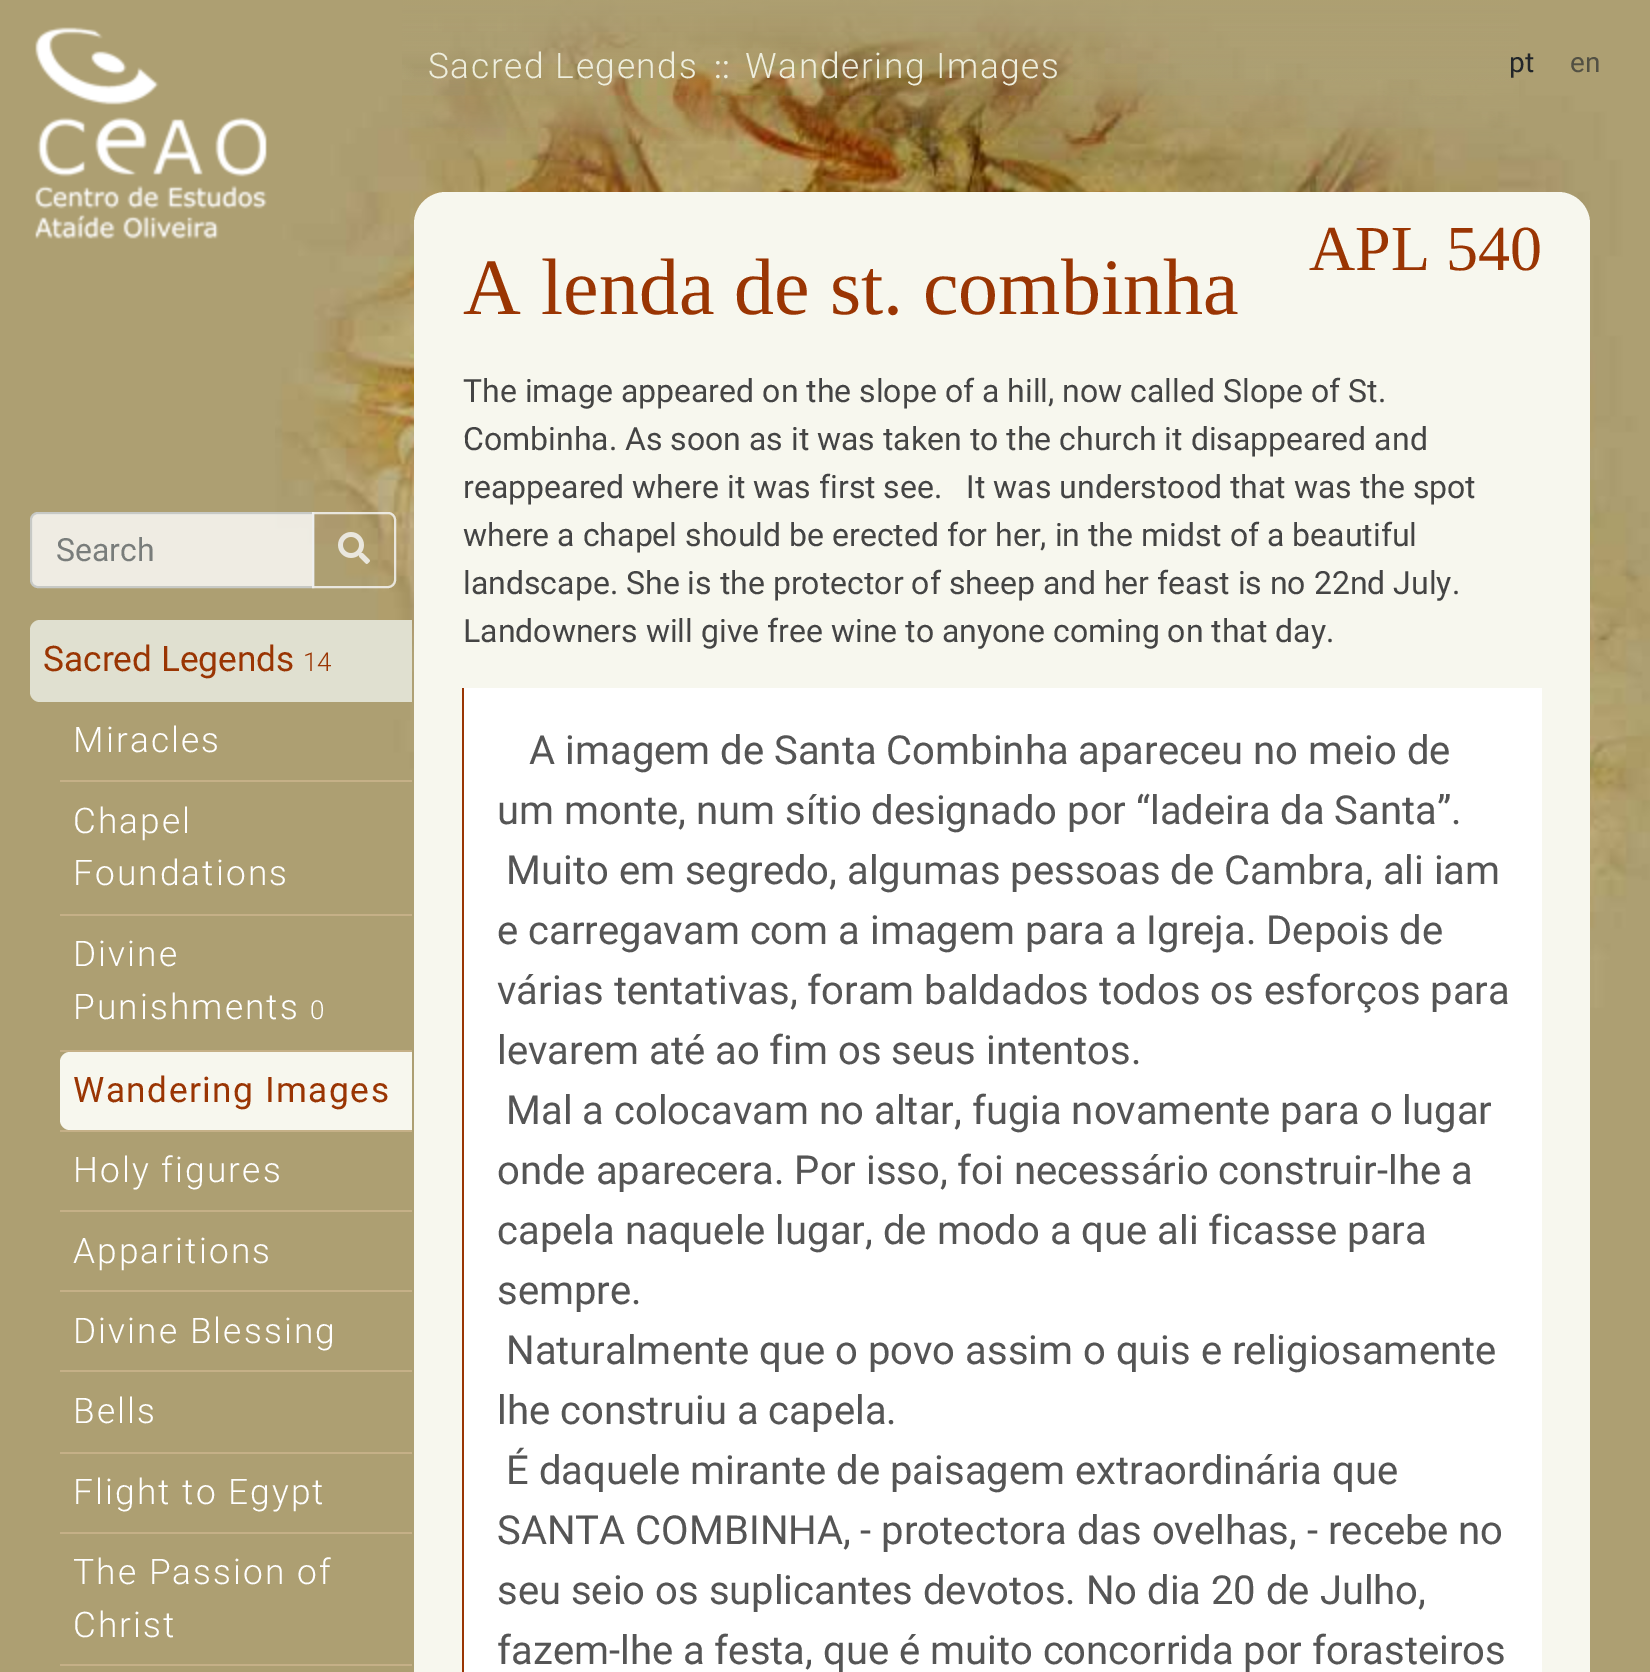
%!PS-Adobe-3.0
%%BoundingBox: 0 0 1650 1672
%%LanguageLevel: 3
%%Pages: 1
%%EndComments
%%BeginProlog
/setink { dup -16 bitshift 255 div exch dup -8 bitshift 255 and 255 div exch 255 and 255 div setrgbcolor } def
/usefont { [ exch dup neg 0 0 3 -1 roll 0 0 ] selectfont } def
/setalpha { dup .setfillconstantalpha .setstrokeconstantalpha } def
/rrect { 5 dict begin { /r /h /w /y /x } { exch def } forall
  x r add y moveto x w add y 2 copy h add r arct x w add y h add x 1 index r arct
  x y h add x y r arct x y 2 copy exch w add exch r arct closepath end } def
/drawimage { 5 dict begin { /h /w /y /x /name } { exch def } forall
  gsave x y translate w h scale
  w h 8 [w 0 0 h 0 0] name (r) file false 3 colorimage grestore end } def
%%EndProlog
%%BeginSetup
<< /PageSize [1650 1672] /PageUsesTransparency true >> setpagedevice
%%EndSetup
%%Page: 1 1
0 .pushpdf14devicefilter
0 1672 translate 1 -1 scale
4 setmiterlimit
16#AD9F72 setink
0 0 1650 1672 rectfill
(img1.raw) 275 0 1375 1072 drawimage
(img2.raw) 402 0 1117 141 drawimage
(img3.raw) 35 27 232 212 drawimage
/Roboto-Light 35.25 usefont
16#EEEEDD setink
428 78 moveto 1.6 0 (Sacred Legends) ashow
/Roboto-Regular 32 usefont
714 78 moveto (::) show
/Roboto-Light 35.25 usefont
745 78 moveto 1.6 0 (Wandering Images) ashow
/Roboto-Regular 28 usefont
16#212529 setink
1509 72 moveto (pt) show
16#525043 setink
1570 72 moveto (en) show
0.8 setalpha
16#FFFFFF setink
38 514 moveto 312 514 lineto 312 586 lineto 38 586 lineto 34.5 586 32 583.5 32 580 curveto 32 520 lineto 32 516.5 34.5 514 38 514 curveto closepath fill
16#CED4DA setink
2 setlinewidth
38 513 moveto 313 513 lineto 313 587 lineto 38 587 lineto 34 587 31 584 31 580 curveto 31 520 lineto 31 516 34 513 38 513 curveto closepath stroke
/Roboto-Regular 32 usefont
1 setalpha
16#797D7B setink
56 561 moveto (Search) show
0.8 setalpha
16#F8F9FA setink
313 513 moveto 388 513 lineto 392 513 395 516 395 520 curveto 395 580 lineto 395 584 392 587 388 587 curveto 313 587 lineto closepath stroke
1 setalpha
(img4.raw) 338 532 32 32 drawimage
16#E0E0D0 setink
40 620 moveto 412 620 lineto 412 702 lineto 40 702 lineto 34.5 702 30 697.5 30 692 curveto 30 630 lineto 30 624.5 34.5 620 40 620 curveto closepath fill
/Roboto-Regular 35.25 usefont
16#9A3503 setink
43 671 moveto (Sacred Legends) show
/Roboto-Light 26 usefont
303 671 moveto (14) show
16#C5B087 setink
60 780 352 2 rectfill
/Roboto-Light 35.25 usefont
16#FFFFFF setink
73 752 moveto 2.1 0 (Miracles) ashow
16#C5B087 setink
60 914 352 2 rectfill
16#FFFFFF setink
73 833 moveto 2.1 0 (Chapel) ashow
73 885 moveto 2.1 0 (Foundations) ashow
16#C5B087 setink
60 1050 352 2 rectfill
16#FFFFFF setink
73 966 moveto 2.1 0 (Divine) ashow
73 1019 moveto 2.1 0 (Punishments) ashow
/Roboto-Light 26 usefont
310 1019 moveto 2.1 0 (0) ashow
16#C5B087 setink
60 1130 352 2 rectfill
16#F7F7EE setink
70 1052 moveto 412 1052 lineto 412 1130 lineto 70 1130 lineto 64.5 1130 60 1125.5 60 1120 curveto 60 1062 lineto 60 1056.5 64.5 1052 70 1052 curveto closepath fill
/Roboto-Regular 35.25 usefont
16#9A3503 setink
73 1102 moveto 1.5 0 (Wandering Images) ashow
16#C5B087 setink
60 1210 352 2 rectfill
/Roboto-Light 35.25 usefont
16#FFFFFF setink
73 1182 moveto 2.1 0 (Holy figures) ashow
16#C5B087 setink
60 1290 352 2 rectfill
16#FFFFFF setink
73 1263 moveto 2.1 0 (Apparitions) ashow
16#C5B087 setink
60 1370 352 2 rectfill
16#FFFFFF setink
73 1343 moveto 2.1 0 (Divine Blessing) ashow
16#C5B087 setink
60 1452 352 2 rectfill
16#FFFFFF setink
73 1423 moveto 2.1 0 (Bells) ashow
16#C5B087 setink
60 1532 352 2 rectfill
16#FFFFFF setink
73 1504 moveto 2.1 0 (Flight to Egypt) ashow
16#C5B087 setink
60 1664 352 2 rectfill
16#FFFFFF setink
73 1584 moveto 2.1 0 (The Passion of) ashow
73 1637 moveto 2.1 0 (Christ) ashow
16#F7F7EE setink
414 192 1176 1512 32 rrect fill
/LiberationSerif-Regular 64 usefont
16#9A3503 setink
1309 270 moveto (APL 540) show
/LiberationSerif-Regular 80 usefont
463 314 moveto (A lenda de st. combinha) show
/Roboto-Regular 32 usefont
16#444444 setink
[
    [(The image appeared on the slope of a hill, now called Slope of St.) 463 402]
    [(Combinha. As soon as it was taken to the church it disappeared and) 463 450]
    [(reappeared where it was first see.   It was understood that was the spot) 463 498]
    [(where a chapel should be erected for her, in the midst of a beautiful) 463 546]
    [(landscape. She is the protector of sheep and her feast is no 22nd July.) 463 594]
    [(Landowners will give free wine to anyone coming on that day.) 463 642]
] { aload pop moveto show } forall
16#FFFFFF setink
464 688 1078 984 rectfill
16#9A3503 setink
462 688 2 984 rectfill
/Roboto-Regular 40 usefont
16#555555 setink
[
    [(A imagem de Santa Combinha apareceu no meio de) 529 764]
    [(um monte, num sítio designado por “ladeira da Santa”.) 497 824]
    [(Muito em segredo, algumas pessoas de Cambra, ali iam) 506 884]
    [(e carregavam com a imagem para a Igreja. Depois de) 497 944]
    [(várias tentativas, foram baldados todos os esforços para) 497 1004]
    [(levarem até ao fim os seus intentos.) 497 1064]
    [(Mal a colocavam no altar, fugia novamente para o lugar) 506 1124]
    [(onde aparecera. Por isso, foi necessário construir-lhe a) 497 1184]
    [(capela naquele lugar, de modo a que ali ficasse para) 497 1244]
    [(sempre.) 497 1304]
    [(Naturalmente que o povo assim o quis e religiosamente) 506 1364]
    [(lhe construiu a capela.) 497 1424]
    [(É daquele mirante de paisagem extraordinária que) 506 1484]
    [(SANTA COMBINHA, - protectora das ovelhas, - recebe no) 497 1544]
    [(seu seio os suplicantes devotos. No dia 20 de Julho,) 497 1604]
    [(fazem-lhe a festa, que é muito concorrida por forasteiros) 497 1664]
] { aload pop moveto show } forall
.poppdf14devicefilter showpage
%%EOF
